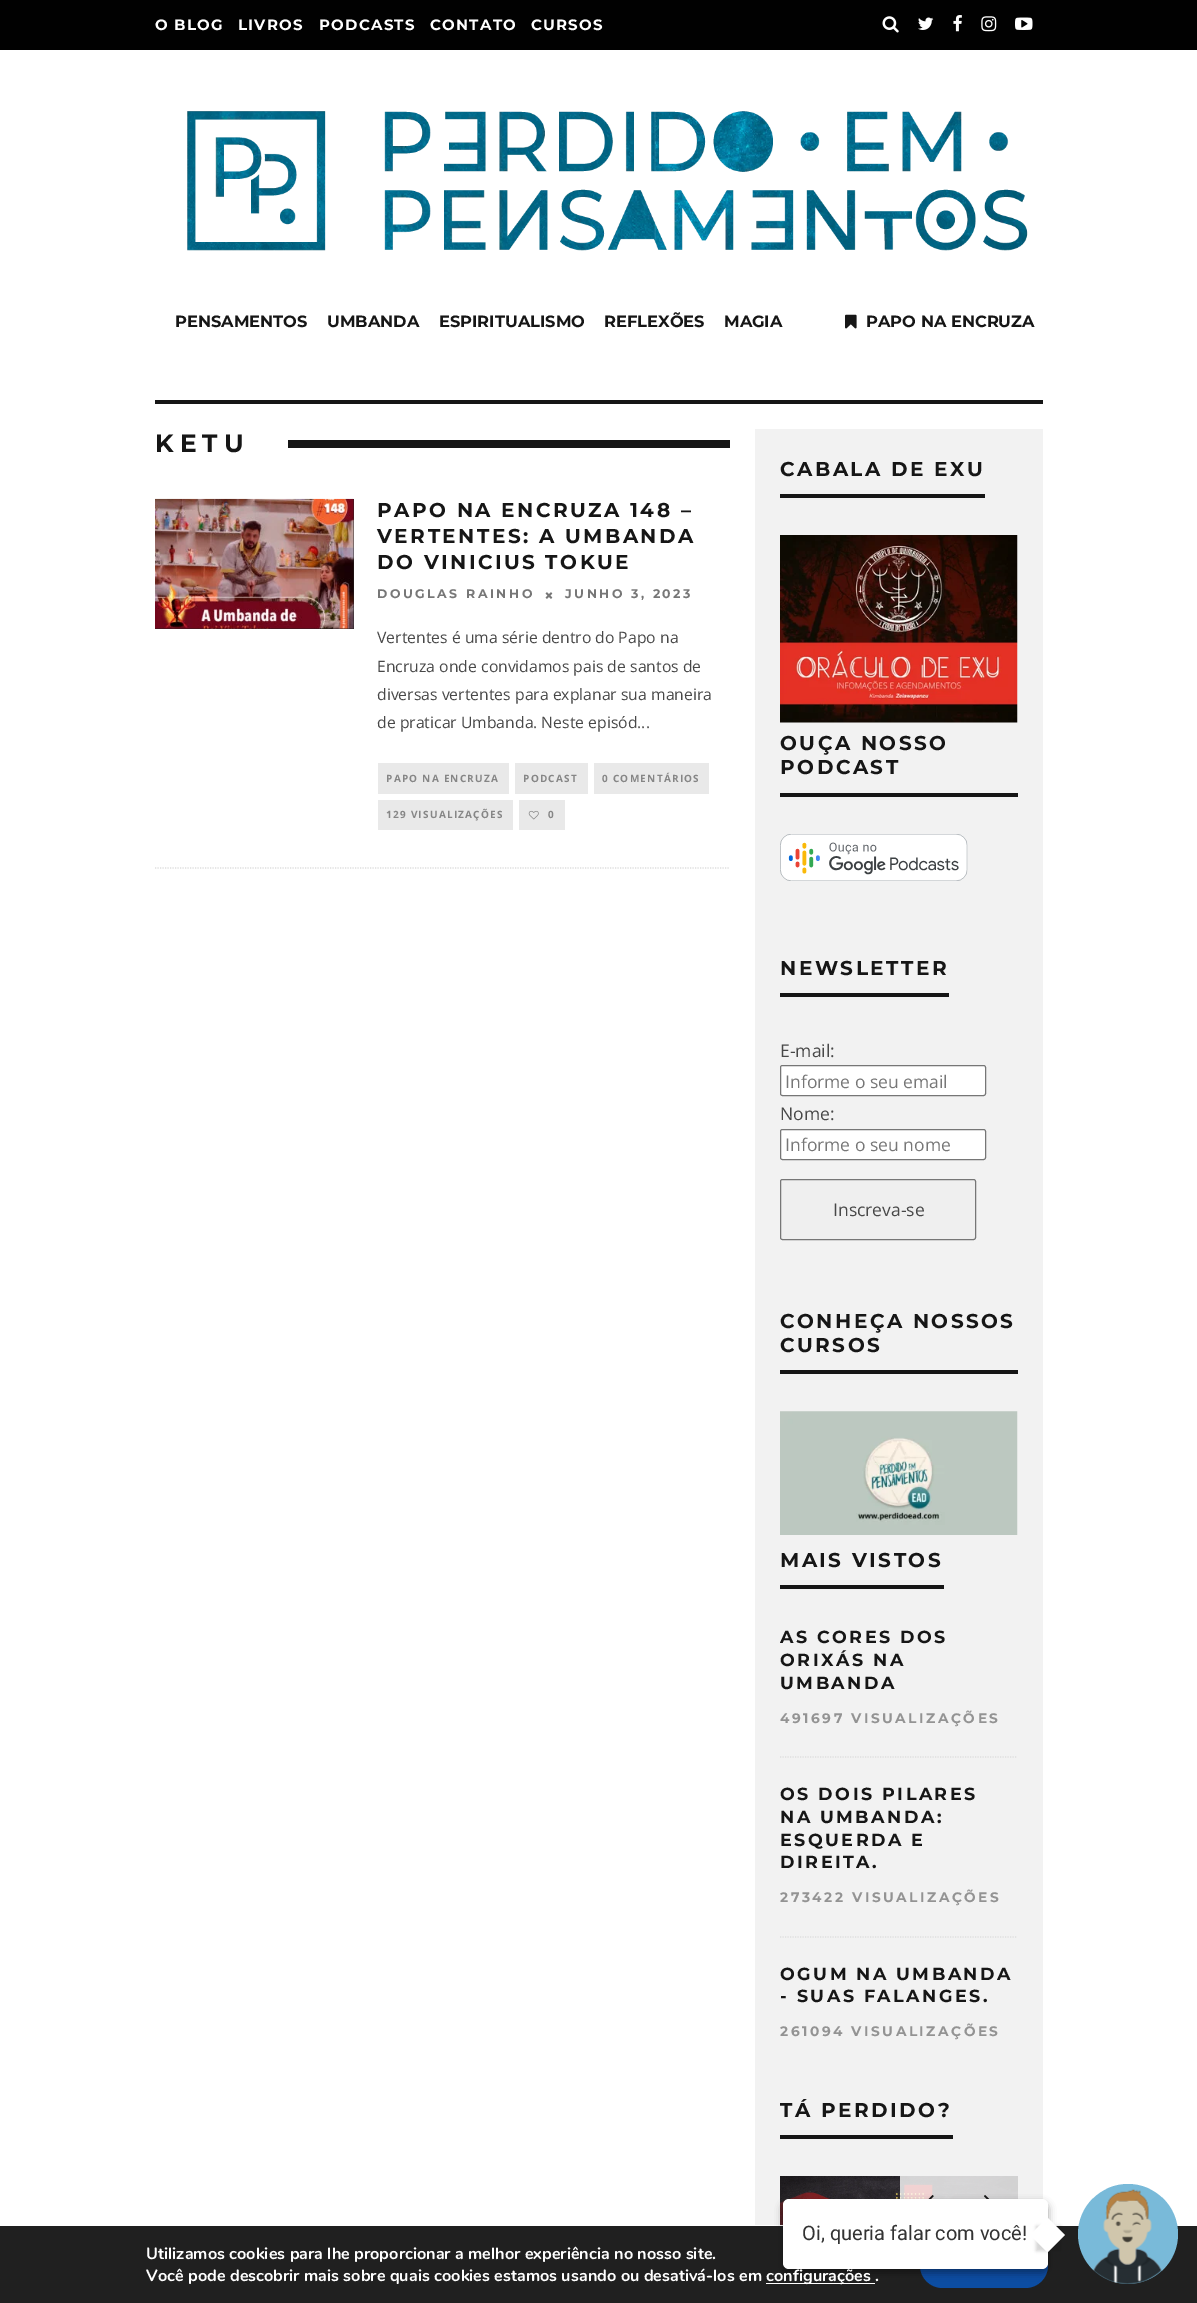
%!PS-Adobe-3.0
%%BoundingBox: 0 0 1197 2303
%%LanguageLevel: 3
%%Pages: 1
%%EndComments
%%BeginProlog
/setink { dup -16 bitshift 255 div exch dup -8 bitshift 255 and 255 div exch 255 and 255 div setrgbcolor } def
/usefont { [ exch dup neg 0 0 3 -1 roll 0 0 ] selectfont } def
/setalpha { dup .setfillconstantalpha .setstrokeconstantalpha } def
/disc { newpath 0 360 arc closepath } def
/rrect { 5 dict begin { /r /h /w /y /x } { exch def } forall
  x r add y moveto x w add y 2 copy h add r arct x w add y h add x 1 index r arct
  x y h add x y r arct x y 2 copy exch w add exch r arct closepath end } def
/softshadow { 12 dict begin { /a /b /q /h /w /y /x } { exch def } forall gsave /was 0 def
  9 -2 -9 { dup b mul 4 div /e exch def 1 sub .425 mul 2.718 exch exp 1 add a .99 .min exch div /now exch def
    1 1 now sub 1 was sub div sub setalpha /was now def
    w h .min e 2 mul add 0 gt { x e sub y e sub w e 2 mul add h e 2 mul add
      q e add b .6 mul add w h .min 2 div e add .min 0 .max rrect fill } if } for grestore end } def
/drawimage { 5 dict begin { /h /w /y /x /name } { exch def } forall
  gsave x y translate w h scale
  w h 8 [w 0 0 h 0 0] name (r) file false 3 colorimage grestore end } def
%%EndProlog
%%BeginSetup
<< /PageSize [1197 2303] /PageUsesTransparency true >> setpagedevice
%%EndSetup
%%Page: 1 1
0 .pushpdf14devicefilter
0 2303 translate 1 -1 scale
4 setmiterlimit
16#FFFFFF setink
0 0 1197 2303 rectfill
16#010101 setink
0 0 1197 50 rectfill
/Montserrat-Bold 15 usefont
16#FFFFFF setink
155 30 moveto 1.25 0 (O BLOG) ashow
238 30 moveto 1.25 0 (LIVROS) ashow
319 30 moveto 1.25 0 (PODCASTS) ashow
430 30 moveto 1.25 0 (CONTATO) ashow
531 30 moveto 1.25 0 (CURSOS) ashow
(img1.raw) 882 16 17 17 drawimage
(img2.raw) 918 17 16 13 drawimage
(img3.raw) 953 15 9 17 drawimage
(img4.raw) 981 16 16 16 drawimage
(img5.raw) 1015 17 18 13 drawimage
(img6.raw) 187 111 841 140 drawimage
16#161616 setink
155 400 888 4 rectfill
/Montserrat-Bold 16.25 usefont
[
    [(PENSAMENTOS) 175 327]
    [(UMBANDA) 327 327]
    [(ESPIRITUALISMO) 439 327]
    [(REFLEXÕES) 604 327]
    [(MAGIA) 724 327]
] { aload pop moveto show } forall
(img7.raw) 845 314 12 15 drawimage
866 327 moveto (PAPO NA ENCRUZA) show
/Montserrat-Bold 25 usefont
155 452 moveto 6 0 (KETU) ashow
288 440 442 8 rectfill
16#DDDDDD setink
1.2 setlinewidth
[1.25 1.25] 0 setdash
155 868 moveto 730 868 lineto stroke
16#222222 setink
155 499 199 130 rectfill
(img8.raw) 155 498 199 131 drawimage
/Montserrat-Bold 20 usefont
16#161616 setink
377 517 moveto 2.5 0 (PAPO NA ENCRUZA 148 –) ashow
377 543 moveto 2.5 0 (VERTENTES: A UMBANDA) ashow
377 569 moveto 2.5 0 (DO VINICIUS TOKUE) ashow
/Montserrat-Bold 12.5 usefont
16#777777 setink
377 598 moveto 2.5 0 (DOUGLAS RAINHO) ashow
(img9.raw) 545 592 8 7 drawimage
565 598 moveto 2.5 0 (JUNHO 3, 2023) ashow
/OpenSans-Regular 15.75 usefont
16#484848 setink
[
    [(Vertentes é uma série dentro do Papo na) 377 643]
    [(Encruza onde convidamos pais de santos de) 377 672]
    [(diversas vertentes para explanar sua maneira) 377 700]
    [(de praticar Umbanda. Neste episód...) 377 728]
] { aload pop moveto show } forall
16#E9E9E9 setink
378 763 131 31 rectfill
/OpenSans-Bold 10 usefont
16#868686 setink
386 782 moveto 1.25 0 (PAPO NA ENCRUZA) ashow
16#E9E9E9 setink
515 763 73 31 rectfill
16#868686 setink
523 782 moveto 1.25 0 (PODCAST) ashow
16#E9E9E9 setink
594 763 115 31 rectfill
16#868686 setink
602 782 moveto 1.25 0 (0 COMENTÁRIOS) ashow
16#E9E9E9 setink
378 800 135 30 rectfill
16#868686 setink
386 818 moveto 1.25 0 (129 VISUALIZAÇÕES) ashow
16#E9E9E9 setink
519 800 46 30 rectfill
(img10.raw) 528 810 11 10 drawimage
16#868686 setink
548 818 moveto 2.5 0 (0) ashow
16#F2F2F2 setink
755 429 288 1796 rectfill
16#161616 setink
780 494 205 4 rectfill
/Montserrat-Bold 20 usefont
780 476 moveto 2.5 0 (CABALA DE EXU) ashow
(img11.raw) 780 535 238 188 drawimage
780 793 238 4 rectfill
780 750 moveto 2.5 0 (OUÇA NOSSO) ashow
780 774 moveto 2.5 0 (PODCAST) ashow
(img12.raw) 780 834 188 47 drawimage
780 993 169 4 rectfill
780 975 moveto 2.5 0 (NEWSLETTER) ashow
/OpenSans-Regular 17.5 usefont
16#484848 setink
780 1057 moveto (E-mail:) show
16#FFFFFF setink
780.5 1065.5 205 30 2 rrect gsave fill grestore
16#767676 setink
1 setlinewidth
[] 0 setdash
stroke
16#777777 setink
785 1088 moveto (Informe o seu email) show
16#484848 setink
780 1120 moveto (Nome:) show
16#FFFFFF setink
780.5 1129.5 205 30 2 rrect gsave fill grestore
16#767676 setink
stroke
16#777777 setink
785 1151 moveto (Informe o seu nome) show
16#EFEFEF setink
780.5 1179.5 195 60 2 rrect gsave fill grestore
16#767676 setink
stroke
16#484848 setink
833 1216 moveto (Inscreva-se) show
16#161616 setink
780 1370 238 4 rectfill
/Montserrat-Bold 20 usefont
780 1328 moveto 2.5 0 (CONHEÇA NOSSOS) ashow
780 1352 moveto 2.5 0 (CURSOS) ashow
(img13.raw) 780 1411 238 124 drawimage
780 1585 164 4 rectfill
780 1567 moveto 2.5 0 (MAIS VISTOS) ashow
16#DDDDDD setink
1.2 setlinewidth
[1.25 1.25] 0 setdash
780 1757 moveto 1017.5 1757 lineto stroke
/Montserrat-Bold 17.5 usefont
16#161616 setink
780 1643 moveto 2.5 0 (AS CORES DOS) ashow
780 1666 moveto 2.5 0 (ORIXÁS NA) ashow
780 1689 moveto 2.5 0 (UMBANDA) ashow
/Montserrat-Bold 13.75 usefont
16#939393 setink
780 1723 moveto 2.5 0 (491697 VISUALIZAÇÕES) ashow
16#DDDDDD setink
780 1937 moveto 1017.5 1937 lineto stroke
/Montserrat-Bold 17.5 usefont
16#161616 setink
780 1800 moveto 2.5 0 (OS DOIS PILARES) ashow
780 1823 moveto 2.5 0 (NA UMBANDA:) ashow
780 1846 moveto 2.5 0 (ESQUERDA E) ashow
780 1868 moveto 2.5 0 (DIREITA.) ashow
/Montserrat-Bold 13.75 usefont
16#939393 setink
780 1902 moveto 2.5 0 (273422 VISUALIZAÇÕES) ashow
/Montserrat-Bold 17.5 usefont
16#161616 setink
780 1980 moveto 2.5 0 (OGUM NA UMBANDA) ashow
780 2002 moveto 2.5 0 (- SUAS FALANGES.) ashow
/Montserrat-Bold 13.75 usefont
16#939393 setink
780 2036 moveto 2.5 0 (261094 VISUALIZAÇÕES) ashow
16#161616 setink
780 2135 173 4 rectfill
/Montserrat-Bold 20 usefont
780 2117 moveto 2.5 0 (TÁ PERDIDO?) ashow
(img14.raw) 780 2176 238 49 drawimage
0.8 setalpha
16#FFFFFF setink
900 2176 59 23 rectfill
1 setalpha
(img15.raw) 928 2195 6 4 drawimage
0.8 setalpha
959 2176 59 23 rectfill
1 setalpha
(img16.raw) 984 2195 6 4 drawimage
16#202020 setink
0 2226 1197 77 rectfill
16#FFFFFF setink
766 2283 109 1 rectfill
16#0C4DA2 setink
920 2243 128 45 22.5 rrect fill
16#000000 setink
783 2203 265 70 6 4 0.23 softshadow
783 2203 265 70 6 4 0.16 softshadow
16#FFFFFF setink
783 2199 265 70 6 rrect fill
/Roboto-Regular 20 usefont
16#333333 setink
802 2240 moveto (Oi, queria falar com você!) show
16#000000 setink
1036 2226 25 25 0 1.5 0.1 softshadow
1036 2226 25 25 0 1.5 0.06 softshadow
16#FFFFFF setink
1030 2235 moveto 1047.5 2217.5 lineto 1065 2235 lineto 1047.5 2252.5 lineto closepath fill
16#79BAD9 setink
1128 2234 50 disc fill
(img17.raw) 1093 2189 69 95 drawimage
/Nunito-Bold 16.25 usefont
16#FFFFFF setink
[
    [(Utilizamos cookies para lhe proporcionar a melhor experiência no nosso site.) 146 2259]
    [(Você pode descobrir mais sobre quais cookies estamos usando ou desativá-los em) 146 2281]
    [(configurações .) 766 2281]
] { aload pop moveto show } forall
.poppdf14devicefilter showpage
%%EOF
